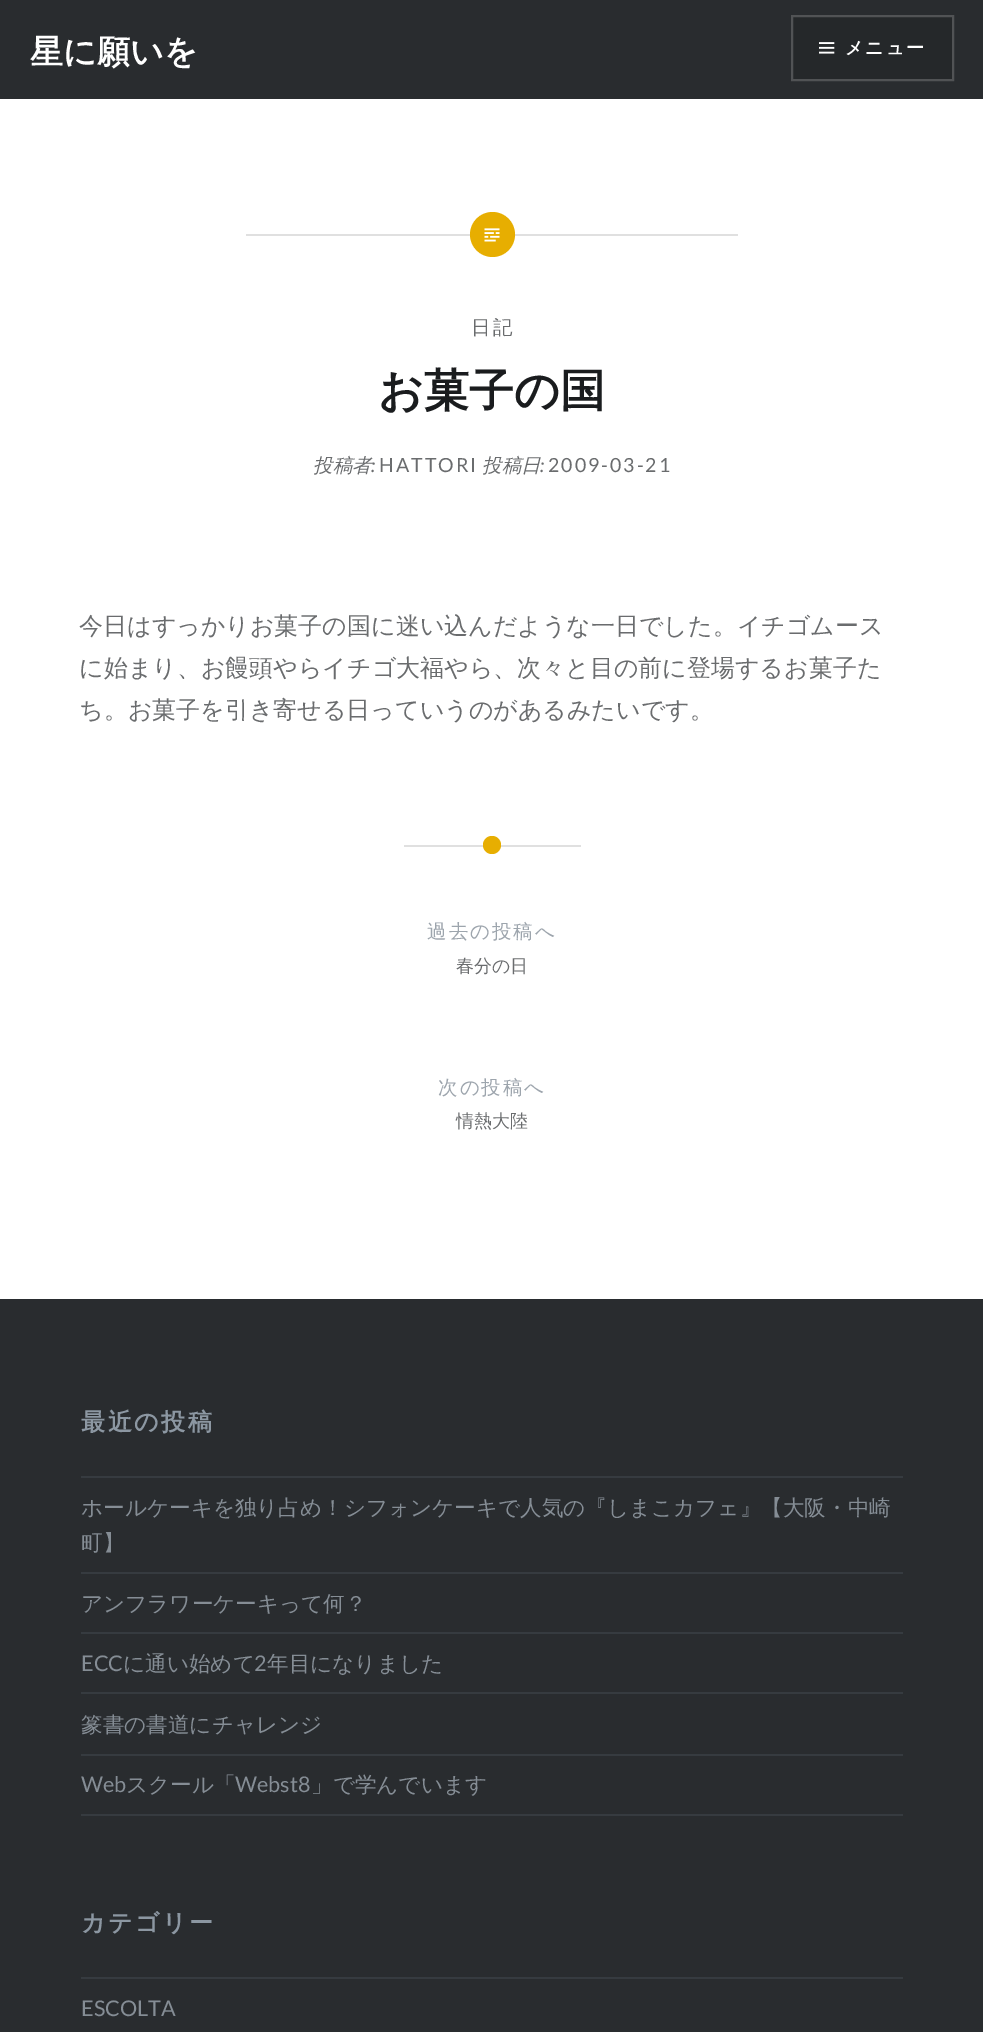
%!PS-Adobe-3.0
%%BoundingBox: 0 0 983 2032
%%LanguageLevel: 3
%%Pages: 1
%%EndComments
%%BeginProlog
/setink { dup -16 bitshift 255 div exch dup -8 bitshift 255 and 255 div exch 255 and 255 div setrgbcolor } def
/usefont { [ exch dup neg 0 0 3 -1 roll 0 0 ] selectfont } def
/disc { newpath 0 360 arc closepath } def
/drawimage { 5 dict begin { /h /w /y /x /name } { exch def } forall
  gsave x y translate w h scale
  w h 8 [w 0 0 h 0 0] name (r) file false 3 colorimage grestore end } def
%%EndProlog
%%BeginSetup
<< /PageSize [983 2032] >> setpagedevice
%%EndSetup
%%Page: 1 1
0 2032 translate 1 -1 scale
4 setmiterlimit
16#FFFFFF setink
0 0 983 2032 rectfill
16#292C2F setink
0 0 983 99 rectfill
/WenQuanYiZenHei-Bold 33 usefont
16#FFFFFF setink
30 63 moveto (星に願いを) show
16#25282A setink
792 16 moveto 953 16 lineto 953 80 lineto 792 80 lineto closepath gsave fill grestore
16#515355 setink
2 setlinewidth
stroke
(img1.raw) 819 42 16 12 drawimage
/WenQuanYiZenHei-Bold 18 usefont
16#FFFFFF setink
845 54 moveto 2 0 (メニュー) ashow
16#E0E0E0 setink
246 234 492 2 rectfill
16#E7AE01 setink
492.5 234.5 22.5 disc fill
(img2.raw) 484 228 16 14 drawimage
/WenQuanYiZenHei-Medium 19.5 usefont
16#6A6C6E setink
471 334 moveto 2 0 (日記) ashow
/WenQuanYiZenHei-Bold 45 usefont
16#1A1C1E setink
378 406 moveto (お菓子の国) show
/WenQuanYiZenHei-MediumItalic 19.5 usefont
16#6A6C6E setink
313 472 moveto (投稿者) show
/Lato-Regular 19.5 usefont
379 472 moveto 2 0 (HATTORI) ashow
/WenQuanYiZenHei-MediumItalic 19.5 usefont
482 472 moveto (投稿日) show
/Lato-Regular 19.5 usefont
548 472 moveto 2 0 (2009-03-21) ashow
/Lato-Italic 19.5 usefont
371 472 moveto (:) show
540 472 moveto (:) show
/WenQuanYiZenHei-Medium 24 usefont
[
    [(今日はすっかりお菓子の国に迷い込んだような一日でした。イチゴムース) 79 634]
    [(に始まり、お饅頭やらイチゴ大福やら、次々と目の前に登場するお菓子た) 79 676]
    [(ち。お菓子を引き寄せる日っていうのがあるみたいです。) 79 718]
] { aload pop moveto show } forall
16#E0E0E0 setink
404 845 177 2 rectfill
16#E7AE01 setink
492 845 9 disc fill
/WenQuanYiZenHei-Medium 19.5 usefont
16#9DA5AD setink
427 938 moveto 2 0 (過去の投稿へ) ashow
/WenQuanYiZenHei-Medium 18 usefont
16#6A6C6E setink
456 972 moveto (春分の日) show
/WenQuanYiZenHei-Medium 19.5 usefont
16#9DA5AD setink
438 1094 moveto 2 0 (次の投稿へ) ashow
/WenQuanYiZenHei-Medium 18 usefont
16#6A6C6E setink
456 1127 moveto (情熱大陸) show
16#292C2F setink
0 1299 983 733 rectfill
/WenQuanYiZenHei-Bold 24 usefont
16#8C97A2 setink
81 1430 moveto 2.5 0 (最近の投稿) ashow
16#363B40 setink
81 1476 822 2 rectfill
81 1572 822 2 rectfill
/WenQuanYiZenHei-Medium 21.6 usefont
16#858D95 setink
81 1515 moveto (ホールケーキを独り占め！シフォンケーキで人気の『しまこカフェ』【大阪・中崎) show
81 1550 moveto (町】) show
16#363B40 setink
81 1632 822 2 rectfill
16#858D95 setink
81 1611 moveto (アンフラワーケーキって何？) show
16#363B40 setink
81 1692 822 2 rectfill
/Lato-Regular 21.6 usefont
16#858D95 setink
81 1671 moveto (ECC) show
/WenQuanYiZenHei-Medium 21.6 usefont
123 1671 moveto (に通い始めて) show
/Lato-Regular 21.6 usefont
254 1671 moveto (2) show
/WenQuanYiZenHei-Medium 21.6 usefont
267 1671 moveto (年目になりました) show
16#363B40 setink
81 1754 822 2 rectfill
16#858D95 setink
81 1732 moveto (篆書の書道にチャレンジ) show
16#363B40 setink
81 1814 822 2 rectfill
/Lato-Regular 21.6 usefont
16#858D95 setink
81 1792 moveto (Web) show
/WenQuanYiZenHei-Medium 21.6 usefont
126 1792 moveto (スクール「) show
/Lato-Regular 21.6 usefont
235 1792 moveto (Webst8) show
/WenQuanYiZenHei-Medium 21.6 usefont
311 1792 moveto (」で学んでいます) show
/WenQuanYiZenHei-Bold 24 usefont
16#8C97A2 setink
81 1931 moveto 2.5 0 (カテゴリー) ashow
16#363B40 setink
81 1977 822 2 rectfill
/Lato-Regular 21.6 usefont
16#858D95 setink
81 2016 moveto (ESCOLTA) show
showpage
%%EOF
